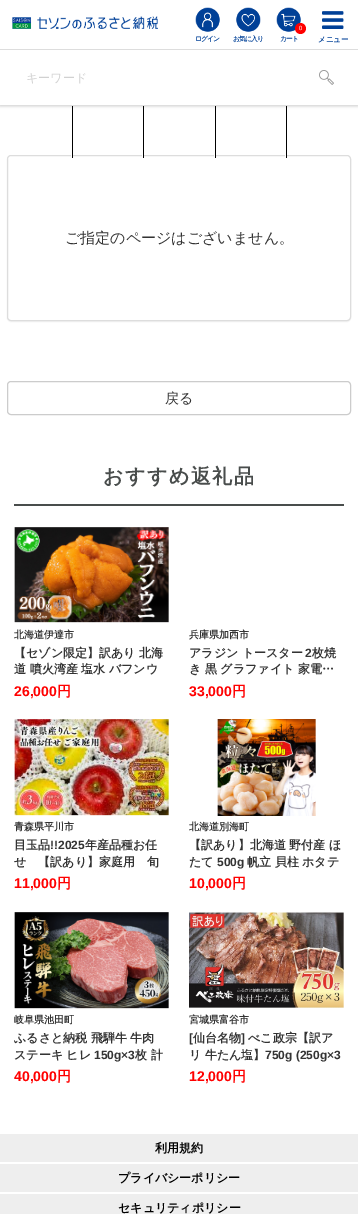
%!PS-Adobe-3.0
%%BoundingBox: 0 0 358 1214
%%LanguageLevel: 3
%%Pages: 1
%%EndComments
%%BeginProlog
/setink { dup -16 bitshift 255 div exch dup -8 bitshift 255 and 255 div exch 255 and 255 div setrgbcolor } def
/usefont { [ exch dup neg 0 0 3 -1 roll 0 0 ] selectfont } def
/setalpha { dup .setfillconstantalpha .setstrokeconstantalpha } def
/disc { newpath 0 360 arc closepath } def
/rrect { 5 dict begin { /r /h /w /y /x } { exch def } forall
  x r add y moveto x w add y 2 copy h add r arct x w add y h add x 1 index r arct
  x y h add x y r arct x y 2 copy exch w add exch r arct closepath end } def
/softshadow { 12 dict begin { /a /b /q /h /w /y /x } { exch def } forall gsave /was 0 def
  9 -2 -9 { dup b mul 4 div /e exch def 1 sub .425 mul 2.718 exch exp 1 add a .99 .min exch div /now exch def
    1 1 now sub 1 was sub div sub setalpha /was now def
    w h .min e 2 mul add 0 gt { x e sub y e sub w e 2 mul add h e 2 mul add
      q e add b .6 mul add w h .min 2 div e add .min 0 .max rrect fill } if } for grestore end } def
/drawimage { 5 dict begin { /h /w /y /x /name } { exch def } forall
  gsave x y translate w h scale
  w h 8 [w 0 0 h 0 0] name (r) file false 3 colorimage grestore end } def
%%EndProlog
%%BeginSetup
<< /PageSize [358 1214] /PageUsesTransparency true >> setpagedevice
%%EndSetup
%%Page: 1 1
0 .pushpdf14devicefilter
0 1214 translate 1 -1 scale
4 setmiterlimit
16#FFFFFF setink
0 0 358 1214 rectfill
16#000000 setink
7 156 344 166 4 0.5 0.05 softshadow
16#FFFFFF setink
7.5 155.5 343 165 3.5 rrect gsave fill grestore
16#DDDDDD setink
stroke
[
    [72 106 1 52 16#000000]
    [143 106 1 52 16#000000]
    [215 106 1 52 16#000000]
    [286 106 1 52 16#000000]
] { aload pop setink rectfill } forall
0 1 358 105 0 1.5 0.2 softshadow
16#FFFFFF setink
0 0 358 105 rectfill
16#DDDDDD setink
0 49 358 1 rectfill
(img1.raw) 12 16 146 13 drawimage
(img2.raw) 195 7 25 25 drawimage
/WenQuanYiZenHei-Bold 6.75 usefont
16#004097 setink
195 41 moveto -0.75 0 (ログイン) ashow
(img3.raw) 236 7 25 25 drawimage
233 41 moveto -0.75 0 (お気に入り) ashow
(img4.raw) 276 7 25 25 drawimage
16#FF0000 setink
300.5 28.5 5.5 disc fill
/LiberationSans-Regular 6 usefont
16#FFFFFF setink
299 30 moveto -0.75 0 (0) ashow
/WenQuanYiZenHei-Bold 6.75 usefont
16#004097 setink
280 41 moveto -0.75 0 (カート) ashow
/WenQuanYiZenHei-Medium 12 usefont
16#D1D1D1 setink
26 82 moveto (キーワード) show
(img5.raw) 319 70 15 15 drawimage
[
    [71 155 1 3 16#FFFFFF]
    [142 155 1 2 16#FFFFFF]
    [214 155 1 2 16#FFFFFF]
    [285 155 1 2 16#FFFFFF]
] { aload pop setink rectfill } forall
(img6.raw) 322 11 22 18 drawimage
/WenQuanYiZenHei-Bold 7.5 usefont
16#004097 setink
318 42 moveto (メニュー) show
/WenQuanYiZenHei-Medium 15 usefont
16#333333 setink
65 243 moveto (ご指定のページはございません。) show
16#CCCCCC setink
7.5 381.5 343 33 3.5 rrect stroke
/WenQuanYiZenHei-Medium 14 usefont
16#333333 setink
165 403 moveto (戻る) show
16#494D4C setink
14 504 330 2 rectfill
/WenQuanYiZenHei-Bold 20 usefont
103 483 moveto 1.5 0 (おすすめ返礼品) ashow
(img7.raw) 14 527 155 96 drawimage
/WenQuanYiZenHei-Bold 10 usefont
16#333333 setink
14 638 moveto (北海道伊達市) show
/WenQuanYiZenHei-Bold 12 usefont
14 657 moveto (【セゾン限定】訳あり 北海) show
14 673 moveto (道 噴火湾産 塩水 バフンウ) show
/LiberationSans-Bold 14 usefont
16#FF0000 setink
14 696 moveto (26,000) show
/WenQuanYiZenHei-Bold 14 usefont
57 696 moveto (円) show
/WenQuanYiZenHei-Bold 10 usefont
16#333333 setink
189 638 moveto (兵庫県加西市) show
/WenQuanYiZenHei-Bold 12 usefont
189 657 moveto (アラジン トースター) show
/LiberationSans-Bold 12 usefont
305 657 moveto (2) show
/WenQuanYiZenHei-Bold 12 usefont
312 657 moveto (枚焼) show
189 673 moveto (き 黒 グラファイト 家電…) show
/LiberationSans-Bold 14 usefont
16#FF0000 setink
189 696 moveto (33,000) show
/WenQuanYiZenHei-Bold 14 usefont
232 696 moveto (円) show
(img8.raw) 14 719 155 97 drawimage
/WenQuanYiZenHei-Bold 10 usefont
16#333333 setink
14 830 moveto (青森県平川市) show
/WenQuanYiZenHei-Bold 12 usefont
14 849 moveto (目玉品) show
/LiberationSans-Bold 12 usefont
50 849 moveto (!!2025) show
/WenQuanYiZenHei-Bold 12 usefont
85 849 moveto (年産品種お任) show
14 866 moveto (せ　【訳あり】家庭用　旬) show
/LiberationSans-Bold 14 usefont
16#FF0000 setink
14 888 moveto (11,000) show
/WenQuanYiZenHei-Bold 14 usefont
57 888 moveto (円) show
(img9.raw) 217 719 99 97 drawimage
/WenQuanYiZenHei-Bold 10 usefont
16#333333 setink
189 830 moveto (北海道別海町) show
/WenQuanYiZenHei-Bold 12 usefont
189 849 moveto (【訳あり】北海道 野付産 ほ) show
189 866 moveto (たて) show
/LiberationSans-Bold 12 usefont
217 866 moveto (500g) show
/WenQuanYiZenHei-Bold 12 usefont
247 866 moveto (帆立 貝柱 ホタテ) show
/LiberationSans-Bold 14 usefont
16#FF0000 setink
189 888 moveto (10,000) show
/WenQuanYiZenHei-Bold 14 usefont
232 888 moveto (円) show
(img10.raw) 14 912 155 97 drawimage
/WenQuanYiZenHei-Bold 10 usefont
16#333333 setink
14 1023 moveto (岐阜県池田町) show
/WenQuanYiZenHei-Bold 12 usefont
14 1042 moveto (ふるさと納税 飛騨牛 牛肉) show
14 1059 moveto (ステーキ ヒレ) show
/LiberationSans-Bold 12 usefont
94 1059 moveto (150g×3) show
/WenQuanYiZenHei-Bold 12 usefont
135 1059 moveto (枚 計) show
/LiberationSans-Bold 14 usefont
16#FF0000 setink
14 1081 moveto (40,000) show
/WenQuanYiZenHei-Bold 14 usefont
57 1081 moveto (円) show
(img11.raw) 189 912 155 96 drawimage
/WenQuanYiZenHei-Bold 10 usefont
16#333333 setink
189 1023 moveto (宮城県富谷市) show
/LiberationSans-Bold 12 usefont
189 1042 moveto ([) show
/WenQuanYiZenHei-Bold 12 usefont
193 1042 moveto (仙台名物) show
/LiberationSans-Bold 12 usefont
241 1042 moveto (]) show
/WenQuanYiZenHei-Bold 12 usefont
248 1042 moveto (べこ政宗【訳ア) show
189 1059 moveto (リ 牛たん塩】) show
/LiberationSans-Bold 12 usefont
265 1059 moveto (750g \(250g×3) show
/LiberationSans-Bold 14 usefont
16#FF0000 setink
189 1081 moveto (12,000) show
/WenQuanYiZenHei-Bold 14 usefont
232 1081 moveto (円) show
16#EEEEEE setink
0 1134 358 80 rectfill
16#FFFFFF setink
0 1162 358 2 rectfill
/WenQuanYiZenHei-Bold 12 usefont
16#000000 setink
155 1152 moveto (利用規約) show
16#FFFFFF setink
0 1192 358 2 rectfill
16#000000 setink
118 1182 moveto (プライバシーポリシー) show
118 1212 moveto (セキュリティポリシー) show
.poppdf14devicefilter showpage
%%EOF
